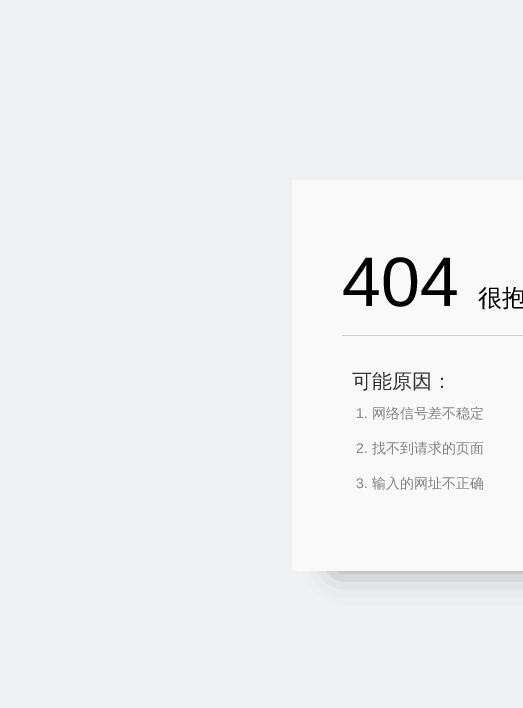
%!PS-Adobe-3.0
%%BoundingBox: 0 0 523 708
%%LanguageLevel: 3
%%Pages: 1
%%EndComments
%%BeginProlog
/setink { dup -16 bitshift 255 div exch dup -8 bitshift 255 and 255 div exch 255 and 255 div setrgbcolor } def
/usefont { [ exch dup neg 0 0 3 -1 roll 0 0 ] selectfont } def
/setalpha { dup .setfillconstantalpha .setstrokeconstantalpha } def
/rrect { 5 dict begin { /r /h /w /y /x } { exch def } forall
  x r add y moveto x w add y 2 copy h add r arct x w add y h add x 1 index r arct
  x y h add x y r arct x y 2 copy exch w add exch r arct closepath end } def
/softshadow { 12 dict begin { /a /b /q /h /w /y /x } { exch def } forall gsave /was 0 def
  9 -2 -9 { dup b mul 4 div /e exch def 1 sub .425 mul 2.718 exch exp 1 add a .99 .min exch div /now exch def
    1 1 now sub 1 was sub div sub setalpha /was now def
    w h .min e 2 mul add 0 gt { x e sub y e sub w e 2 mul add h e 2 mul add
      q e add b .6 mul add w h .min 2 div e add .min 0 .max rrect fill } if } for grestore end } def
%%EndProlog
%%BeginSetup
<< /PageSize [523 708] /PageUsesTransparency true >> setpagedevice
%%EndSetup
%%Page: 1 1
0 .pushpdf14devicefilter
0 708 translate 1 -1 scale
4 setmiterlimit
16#F0F1F3 setink
0 0 523 708 rectfill
16#999999 setink
335 538 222 32 0 15.5 1 softshadow
16#F9F9F9 setink
292 180 231 391 rectfill
16#D0D0D0 setink
342 335 181 1 rectfill
/LiberationSans-Regular 70 usefont
16#000000 setink
342 306 moveto (404) show
/WenQuanYiZenHei-Medium 24 usefont
478 306 moveto (很抱) show
/WenQuanYiZenHei-Medium 20 usefont
16#333333 setink
352 388 moveto (可能原因：) show
/LiberationSans-Regular 14 usefont
16#838383 setink
356 418 moveto (1.) show
/WenQuanYiZenHei-Medium 14 usefont
372 418 moveto (网络信号差不稳定) show
/LiberationSans-Regular 14 usefont
356 453 moveto (2.) show
/WenQuanYiZenHei-Medium 14 usefont
372 453 moveto (找不到请求的页面) show
/LiberationSans-Regular 14 usefont
356 488 moveto (3.) show
/WenQuanYiZenHei-Medium 14 usefont
372 488 moveto (输入的网址不正确) show
.poppdf14devicefilter showpage
%%EOF
